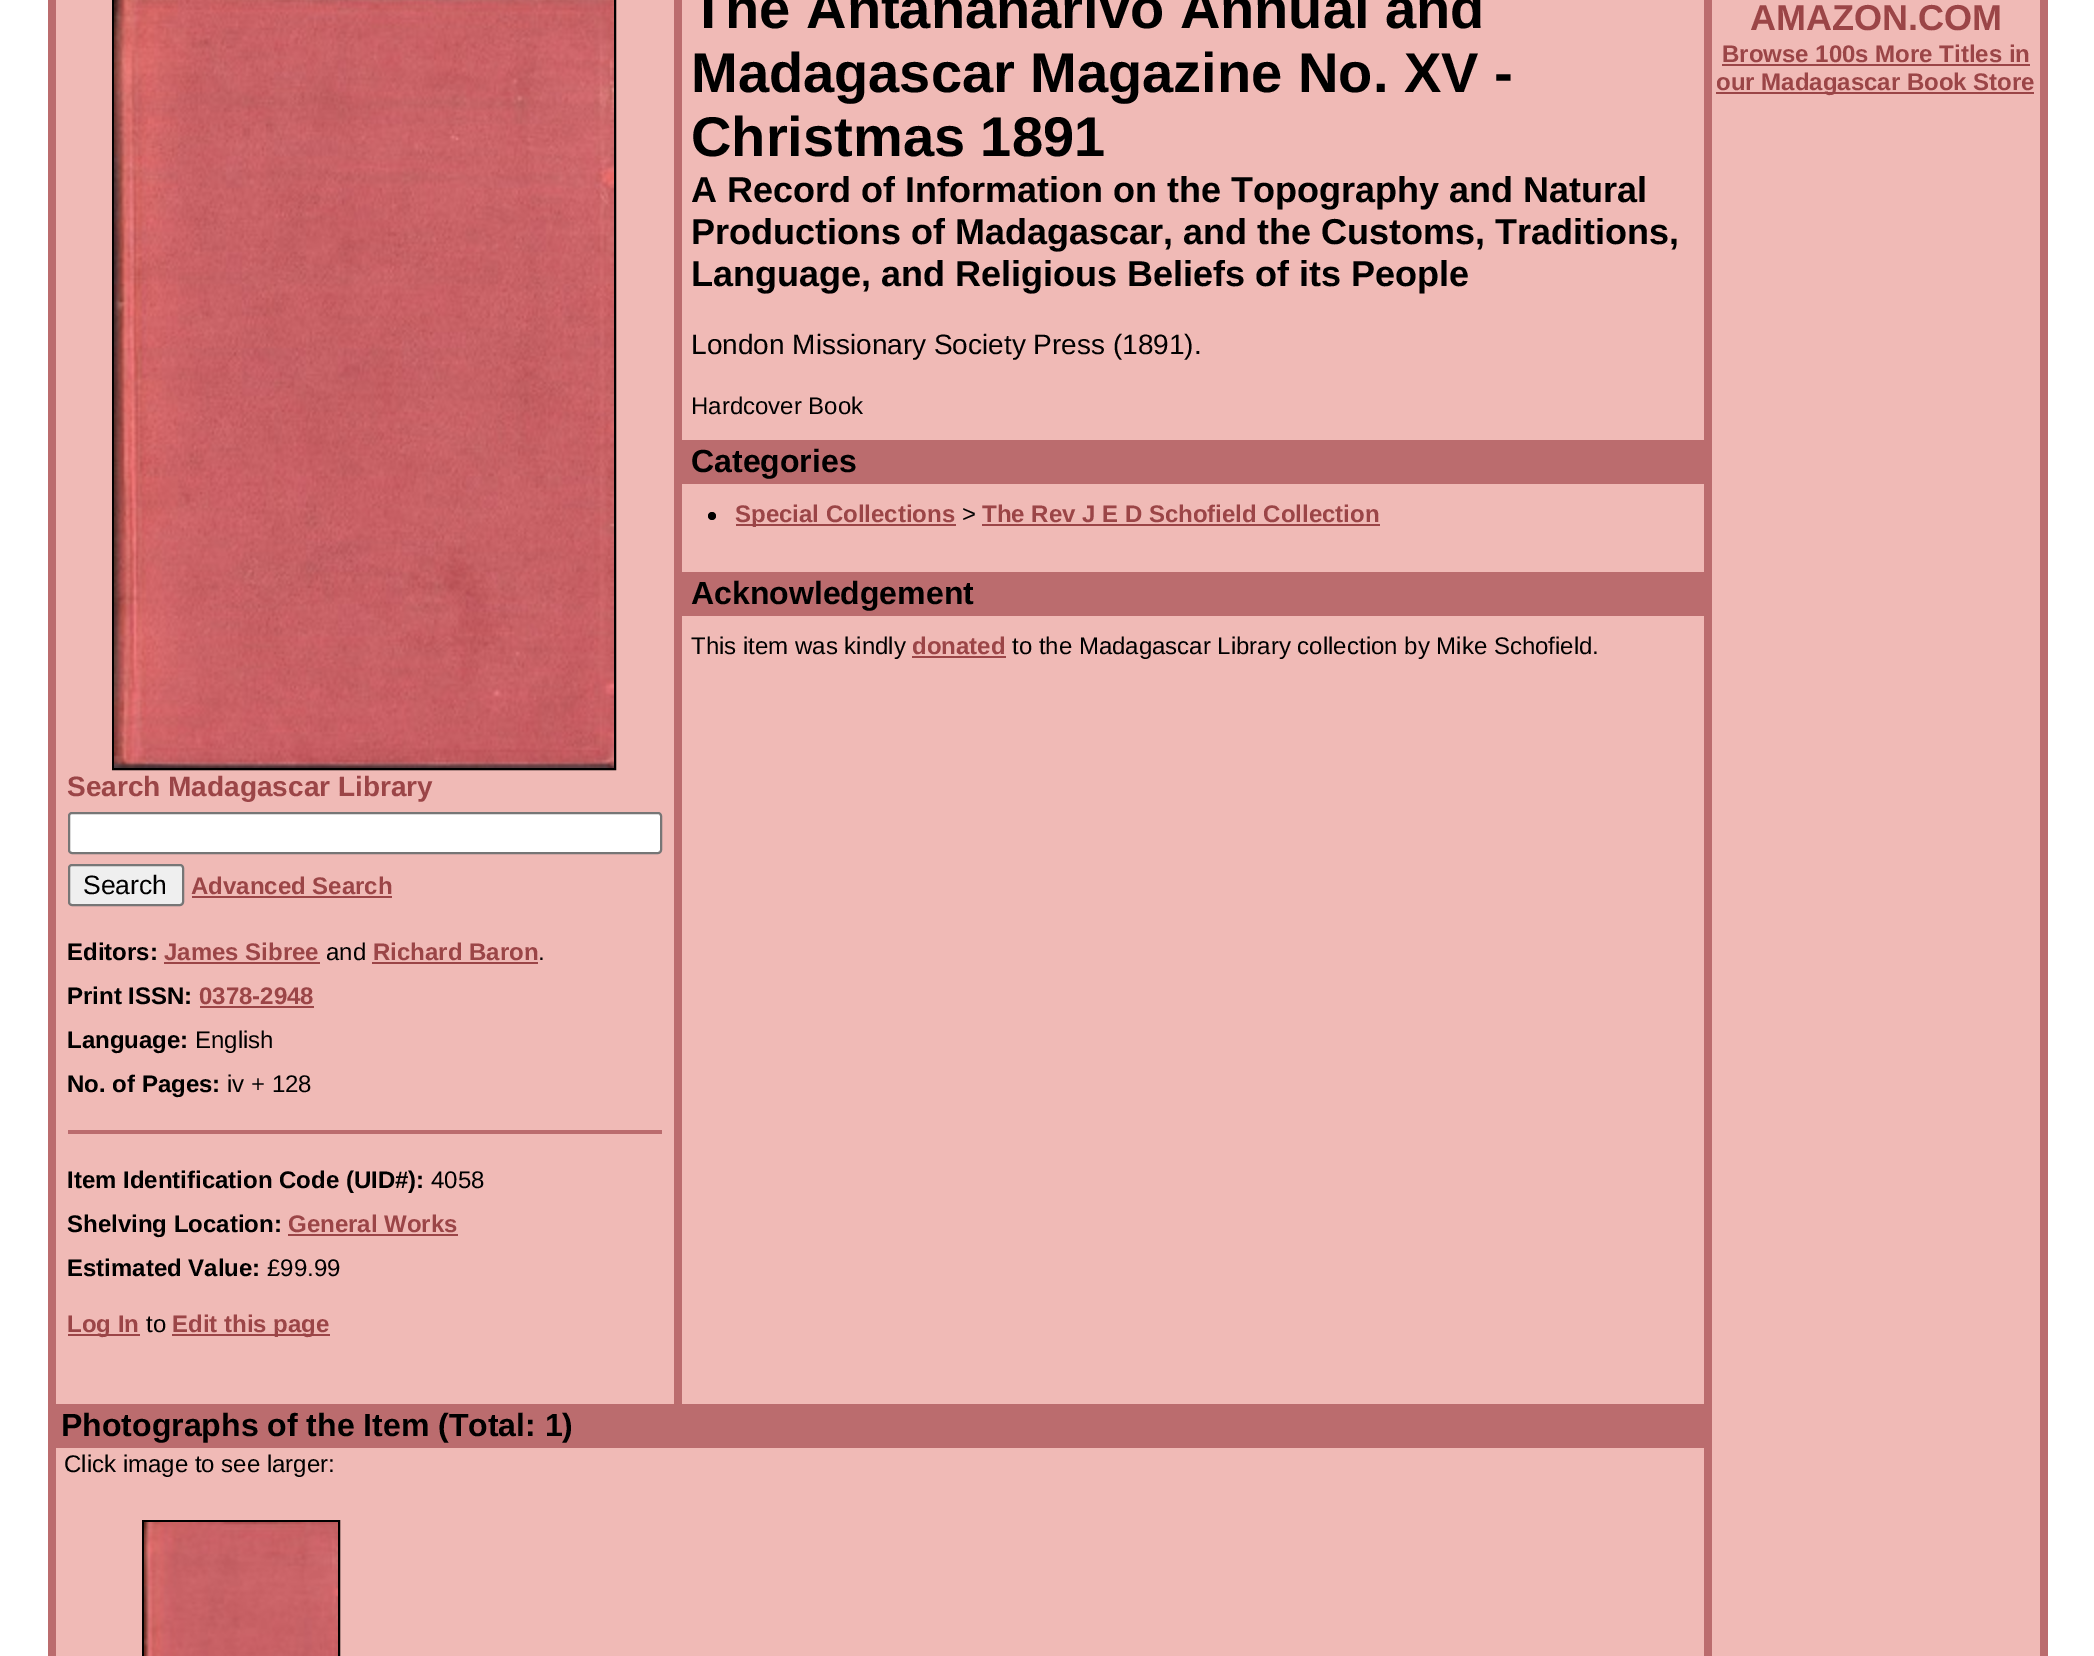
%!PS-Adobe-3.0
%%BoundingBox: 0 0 2094 1656
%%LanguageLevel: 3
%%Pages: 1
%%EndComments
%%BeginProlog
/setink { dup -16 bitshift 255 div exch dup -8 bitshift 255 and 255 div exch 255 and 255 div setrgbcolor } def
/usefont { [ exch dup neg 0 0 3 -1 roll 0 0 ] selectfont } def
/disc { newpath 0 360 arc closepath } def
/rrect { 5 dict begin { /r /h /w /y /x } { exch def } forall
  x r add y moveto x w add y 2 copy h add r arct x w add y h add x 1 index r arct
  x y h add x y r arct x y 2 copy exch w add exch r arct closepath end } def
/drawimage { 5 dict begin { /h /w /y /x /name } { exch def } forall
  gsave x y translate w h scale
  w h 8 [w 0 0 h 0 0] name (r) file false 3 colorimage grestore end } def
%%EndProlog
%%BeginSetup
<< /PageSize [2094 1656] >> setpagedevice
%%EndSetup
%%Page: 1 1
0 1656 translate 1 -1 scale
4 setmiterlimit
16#FFFFFF setink
0 0 2094 1656 rectfill
[
    [56 0 1984 1656 16#F0BAB6]
    [2040 0 8 1656 16#BB6C6E]
    [48 0 4 1656 16#BB6C6E]
    [1704 0 4 1404 16#BB6C6E]
] { aload pop setink rectfill } forall
/LiberationSans-Bold 56 usefont
16#000000 setink
[
    [(The Antananarivo Annual and) 691 28]
    [(Madagascar Magazine No. XV -) 691 92]
    [(Christmas 1891) 691 156]
] { aload pop moveto show } forall
/LiberationSans-Bold 36 usefont
[
    [(A Record of Information on the Topography and Natural) 691 202]
    [(Productions of Madagascar, and the Customs, Traditions,) 691 244]
    [(Language, and Religious Beliefs of its People) 691 286]
] { aload pop moveto show } forall
/LiberationSans-Regular 28 usefont
691 354 moveto (London Missionary Society Press \(1891\).) show
/LiberationSans-Regular 24 usefont
691 414 moveto (Hardcover Book) show
16#BB6C6E setink
682 440 1022 44 rectfill
/LiberationSans-Bold 32 usefont
16#000000 setink
691 472 moveto (Categories) show
712 516 4 disc fill
16#9B4547 setink
736 524 220 2 rectfill
/LiberationSans-Bold 24 usefont
735 522 moveto (Special Collections) show
/LiberationSans-Regular 24 usefont
16#000000 setink
962 522 moveto (>) show
/LiberationSans-Bold 24 usefont
16#9B4547 setink
982 522 moveto (The Rev J E D Schofield Collection) show
982 524 398 2 rectfill
16#BB6C6E setink
682 572 1022 44 rectfill
/LiberationSans-Bold 32 usefont
16#000000 setink
691 604 moveto (Acknowledgement) show
/LiberationSans-Regular 24 usefont
691 654 moveto (This item was kindly) show
/LiberationSans-Bold 24 usefont
16#9B4547 setink
912 654 moveto (donated) show
912 656 94 2 rectfill
/LiberationSans-Regular 24 usefont
16#000000 setink
1012 654 moveto (to the Madagascar Library collection by Mike Schofield.) show
16#BB6C6E setink
1708 0 4 1656 rectfill
/LiberationSans-Bold 36 usefont
16#9B4547 setink
1750 30 moveto (AMAZON.COM) show
/LiberationSans-Bold 24 usefont
1722 62 moveto (Browse 100s More Titles in) show
1722 64 308 2 rectfill
1716 92 318 2 rectfill
1716 90 moveto (our Madagascar Book Store) show
16#BB6C6E setink
674 0 8 1404 rectfill
52 0 4 1404 rectfill
16#000000 setink
2 setlinewidth
113 -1 502 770 rectstroke
(img1.raw) 114 0 500 768 drawimage
/LiberationSans-Bold 28 usefont
16#9B4547 setink
67 796 moveto (Search Madagascar Library) show
16#FFFFFF setink
69 813 592 40 3 rrect gsave fill grestore
16#767676 setink
stroke
16#EFEFEF setink
69 865 114 40 3 rrect gsave fill grestore
16#767676 setink
stroke
/LiberationSans-Regular 26.5 usefont
16#000000 setink
83 894 moveto (Search) show
/LiberationSans-Bold 24 usefont
16#9B4547 setink
191 894 moveto (Advanced Search) show
192 896 200 2 rectfill
16#000000 setink
67 960 moveto (Editors:) show
16#9B4547 setink
164 960 moveto (James Sibree) show
164 962 156 2 rectfill
/LiberationSans-Regular 24 usefont
16#000000 setink
326 960 moveto (and) show
/LiberationSans-Bold 24 usefont
16#9B4547 setink
373 960 moveto (Richard Baron) show
/LiberationSans-Regular 24 usefont
16#000000 setink
538 960 moveto (.) show
16#9B4547 setink
372 962 166 2 rectfill
/LiberationSans-Bold 24 usefont
16#000000 setink
67 1004 moveto (Print ISSN:) show
16#9B4547 setink
199 1004 moveto (0378-2948) show
200 1006 114 2 rectfill
16#000000 setink
67 1048 moveto (Language:) show
/LiberationSans-Regular 24 usefont
195 1048 moveto (English) show
/LiberationSans-Bold 24 usefont
67 1092 moveto (No. of Pages:) show
/LiberationSans-Regular 24 usefont
227 1092 moveto (iv + 128) show
16#BB6C6E setink
68 1130 594 4 rectfill
/LiberationSans-Bold 24 usefont
16#000000 setink
67 1188 moveto (Item Identification Code \(UID#\):) show
/LiberationSans-Regular 24 usefont
431 1188 moveto (4058) show
/LiberationSans-Bold 24 usefont
67 1232 moveto (Shelving Location:) show
16#9B4547 setink
288 1232 moveto (General Works) show
288 1234 170 2 rectfill
16#000000 setink
67 1276 moveto (Estimated Value:) show
/LiberationSans-Regular 24 usefont
267 1276 moveto (£99.99) show
16#9B4547 setink
68 1334 72 2 rectfill
/LiberationSans-Bold 24 usefont
67 1332 moveto (Log In) show
/LiberationSans-Regular 24 usefont
16#000000 setink
146 1332 moveto (to) show
16#9B4547 setink
172 1334 158 2 rectfill
/LiberationSans-Bold 24 usefont
172 1332 moveto (Edit this page) show
16#BB6C6E setink
52 1404 1656 44 rectfill
/LiberationSans-Bold 32 usefont
16#000000 setink
61 1436 moveto (Photographs of the Item \(Total: 1\)) show
16#BB6C6E setink
1704 1448 4 208 rectfill
52 1448 4 208 rectfill
/LiberationSans-Regular 24 usefont
16#000000 setink
64 1472 moveto (Click image to see larger:) show
143 1521 196 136 rectstroke
(img2.raw) 144 1522 194 134 drawimage
showpage
%%EOF
